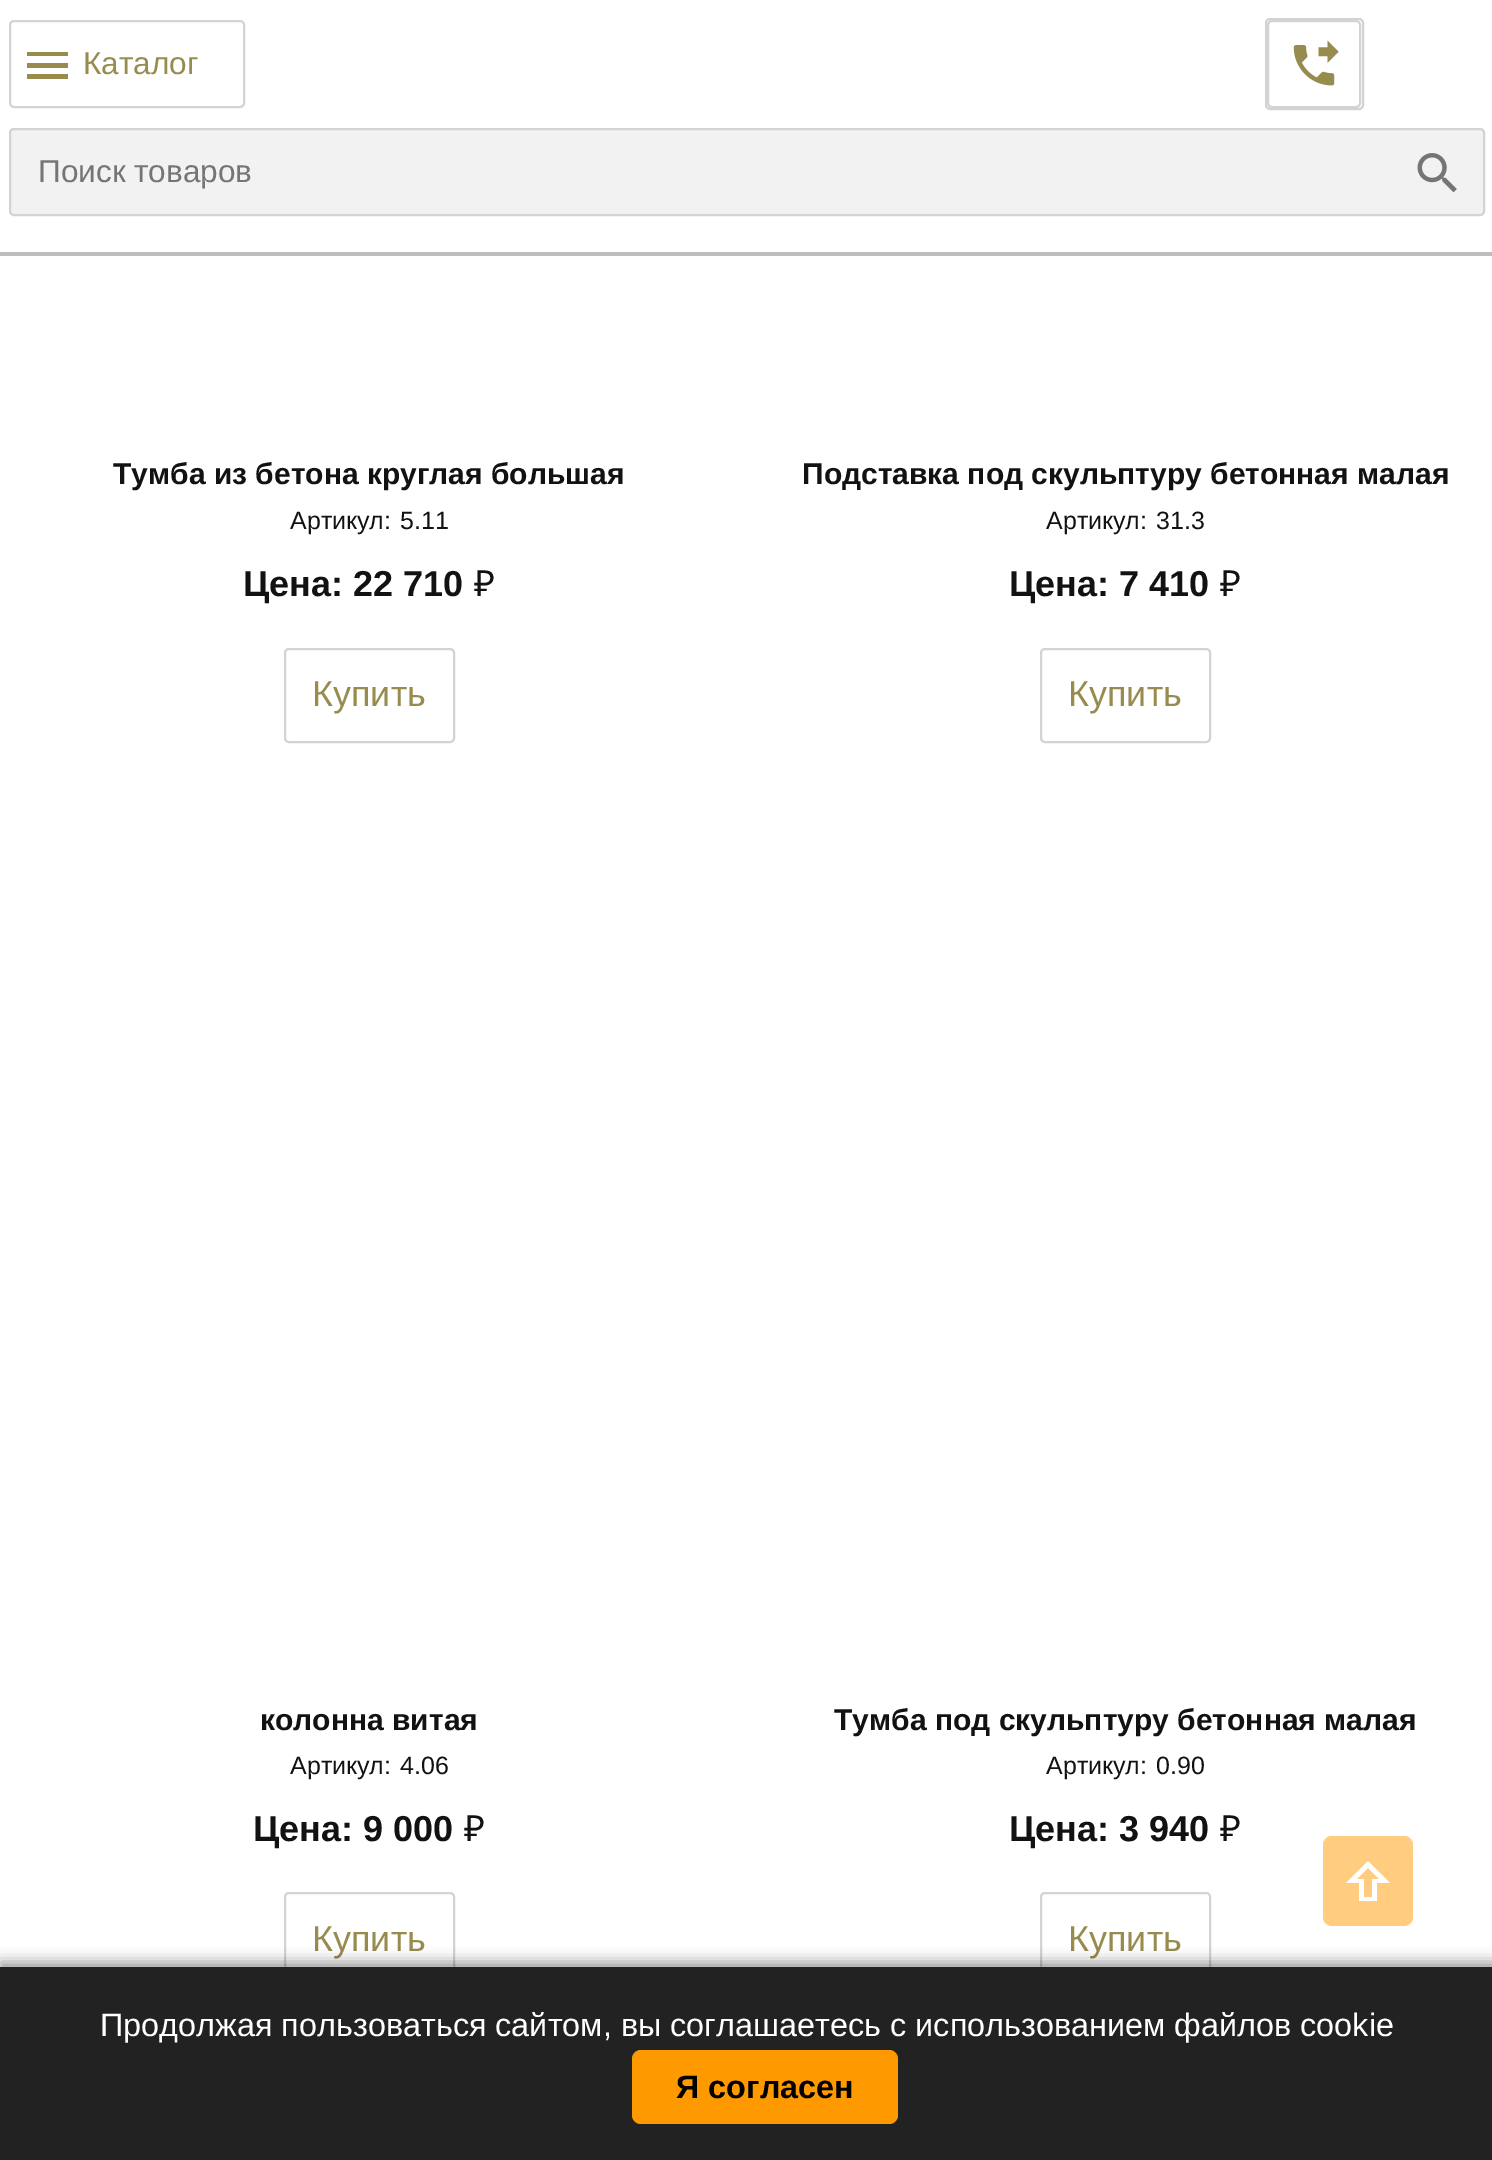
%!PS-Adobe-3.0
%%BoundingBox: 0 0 1492 2160
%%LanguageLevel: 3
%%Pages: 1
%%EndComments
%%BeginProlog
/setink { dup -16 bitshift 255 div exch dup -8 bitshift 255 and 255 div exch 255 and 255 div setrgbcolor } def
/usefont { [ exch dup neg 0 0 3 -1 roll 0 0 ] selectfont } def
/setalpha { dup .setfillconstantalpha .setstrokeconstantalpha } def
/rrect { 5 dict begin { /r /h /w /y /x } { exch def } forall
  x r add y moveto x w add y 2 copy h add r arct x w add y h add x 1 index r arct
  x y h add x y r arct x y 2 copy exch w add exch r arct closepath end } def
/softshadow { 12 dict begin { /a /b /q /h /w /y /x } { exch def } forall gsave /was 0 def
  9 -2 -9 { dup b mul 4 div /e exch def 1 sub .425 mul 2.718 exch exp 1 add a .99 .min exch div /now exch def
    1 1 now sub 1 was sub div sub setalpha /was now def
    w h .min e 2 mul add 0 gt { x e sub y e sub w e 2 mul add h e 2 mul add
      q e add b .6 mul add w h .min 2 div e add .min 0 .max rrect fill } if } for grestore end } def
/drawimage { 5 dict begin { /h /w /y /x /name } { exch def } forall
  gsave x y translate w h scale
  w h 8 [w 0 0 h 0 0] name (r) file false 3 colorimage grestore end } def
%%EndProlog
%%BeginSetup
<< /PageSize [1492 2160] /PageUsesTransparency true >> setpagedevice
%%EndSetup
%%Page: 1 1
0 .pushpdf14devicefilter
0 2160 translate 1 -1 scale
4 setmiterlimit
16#FFFFFF setink
0 0 1492 2160 rectfill
16#BDBDBD setink
0 252 1492 4 rectfill
16#978B4E setink
27 52 moveto 68 52 lineto 68 56 lineto 27 56 lineto 27 52 lineto 27 63 moveto 68 63 lineto 68 68 lineto 27 68 lineto 27 63 lineto 27 74 moveto 68 74 lineto 68 79 lineto 27 79 lineto closepath fill
16#D3D3D4 setink
2 setlinewidth
10 21 234 86 4 rrect stroke
/LiberationSans-Regular 31.5 usefont
16#978B4E setink
83 74 moveto (Каталог) show
16#D3D3D4 setink
1266 19 97 90 4 rrect stroke
(img1.raw) 1293 40 46 46 drawimage
1268 21 92 86 4 rrect stroke
16#F2F2F2 setink
9 128 1476 88 5 rrect fill
(img2.raw) 1417 153 40 40 drawimage
16#D3D3D4 setink
10 129 1474 86 4 rrect stroke
16#757575 setink
38 182 moveto (Поиск товаров) show
/LiberationSans-Bold 30 usefont
16#121212 setink
113 484 moveto (Тумба из бетона круглая большая) show
/LiberationSans-Regular 25 usefont
290 529 moveto (Артикул:) show
400 529 moveto (5.11) show
/LiberationSans-Bold 36 usefont
243 596 moveto (Цена: 22 710) show
/NotoSans-Regular 36 usefont
474 596 moveto (₽) show
16#D3D3D4 setink
285 649 169 93 4 rrect stroke
/LiberationSans-Regular 36 usefont
16#978B4E setink
312 706 moveto (Купить) show
/LiberationSans-Bold 30 usefont
16#121212 setink
802 484 moveto (Подставка под скульптуру бетонная малая) show
/LiberationSans-Regular 25 usefont
1046 529 moveto (Артикул:) show
1156 529 moveto (31.3) show
/LiberationSans-Bold 36 usefont
1009 596 moveto (Цена: 7 410) show
/NotoSans-Regular 36 usefont
1220 596 moveto (₽) show
16#D3D3D4 setink
1041 649 169 93 4 rrect stroke
/LiberationSans-Regular 36 usefont
16#978B4E setink
1068 706 moveto (Купить) show
/LiberationSans-Bold 30 usefont
16#121212 setink
260 1730 moveto (колонна витая) show
/LiberationSans-Regular 25 usefont
290 1774 moveto (Артикул:) show
400 1774 moveto (4.06) show
/LiberationSans-Bold 36 usefont
253 1841 moveto (Цена: 9 000) show
/NotoSans-Regular 36 usefont
464 1841 moveto (₽) show
16#D3D3D4 setink
285 1893 169 93 4 rrect stroke
/LiberationSans-Regular 36 usefont
16#978B4E setink
312 1951 moveto (Купить) show
/LiberationSans-Bold 30 usefont
16#121212 setink
834 1730 moveto (Тумба под скульптуру бетонная малая) show
/LiberationSans-Regular 25 usefont
1046 1774 moveto (Артикул:) show
1156 1774 moveto (0.90) show
/LiberationSans-Bold 36 usefont
1009 1841 moveto (Цена: 3 940) show
/NotoSans-Regular 36 usefont
1220 1841 moveto (₽) show
16#D3D3D4 setink
1041 1893 169 93 4 rrect stroke
/LiberationSans-Regular 36 usefont
16#978B4E setink
1068 1951 moveto (Купить) show
16#FFCC80 setink
1323 1836 90 90 9 rrect fill
16#FFFFFF setink
1377 1883 moveto 1377 1901 lineto 1359 1901 lineto 1359 1883 lineto 1346 1883 lineto 1368 1861 lineto 1390 1883 lineto 1377 1883 lineto 1357 1879 moveto 1364 1879 lineto 1364 1897 lineto 1372 1897 lineto 1372 1879 lineto 1379 1879 lineto 1368 1868 lineto closepath fill
16#000000 setink
0 1962 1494 194 0 7 0.4 softshadow
16#222222 setink
0 1967 1492 193 rectfill
/LiberationSans-Regular 32.4 usefont
16#FFFFFF setink
100 2036 moveto (Продолжая пользоваться сайтом, вы соглашаетесь с использованием файлов cookie) show
16#FF9900 setink
632 2050 266 74 9 rrect fill
/LiberationSans-Bold 32.4 usefont
16#000000 setink
676 2098 moveto (Я согласен) show
.poppdf14devicefilter showpage
%%EOF
